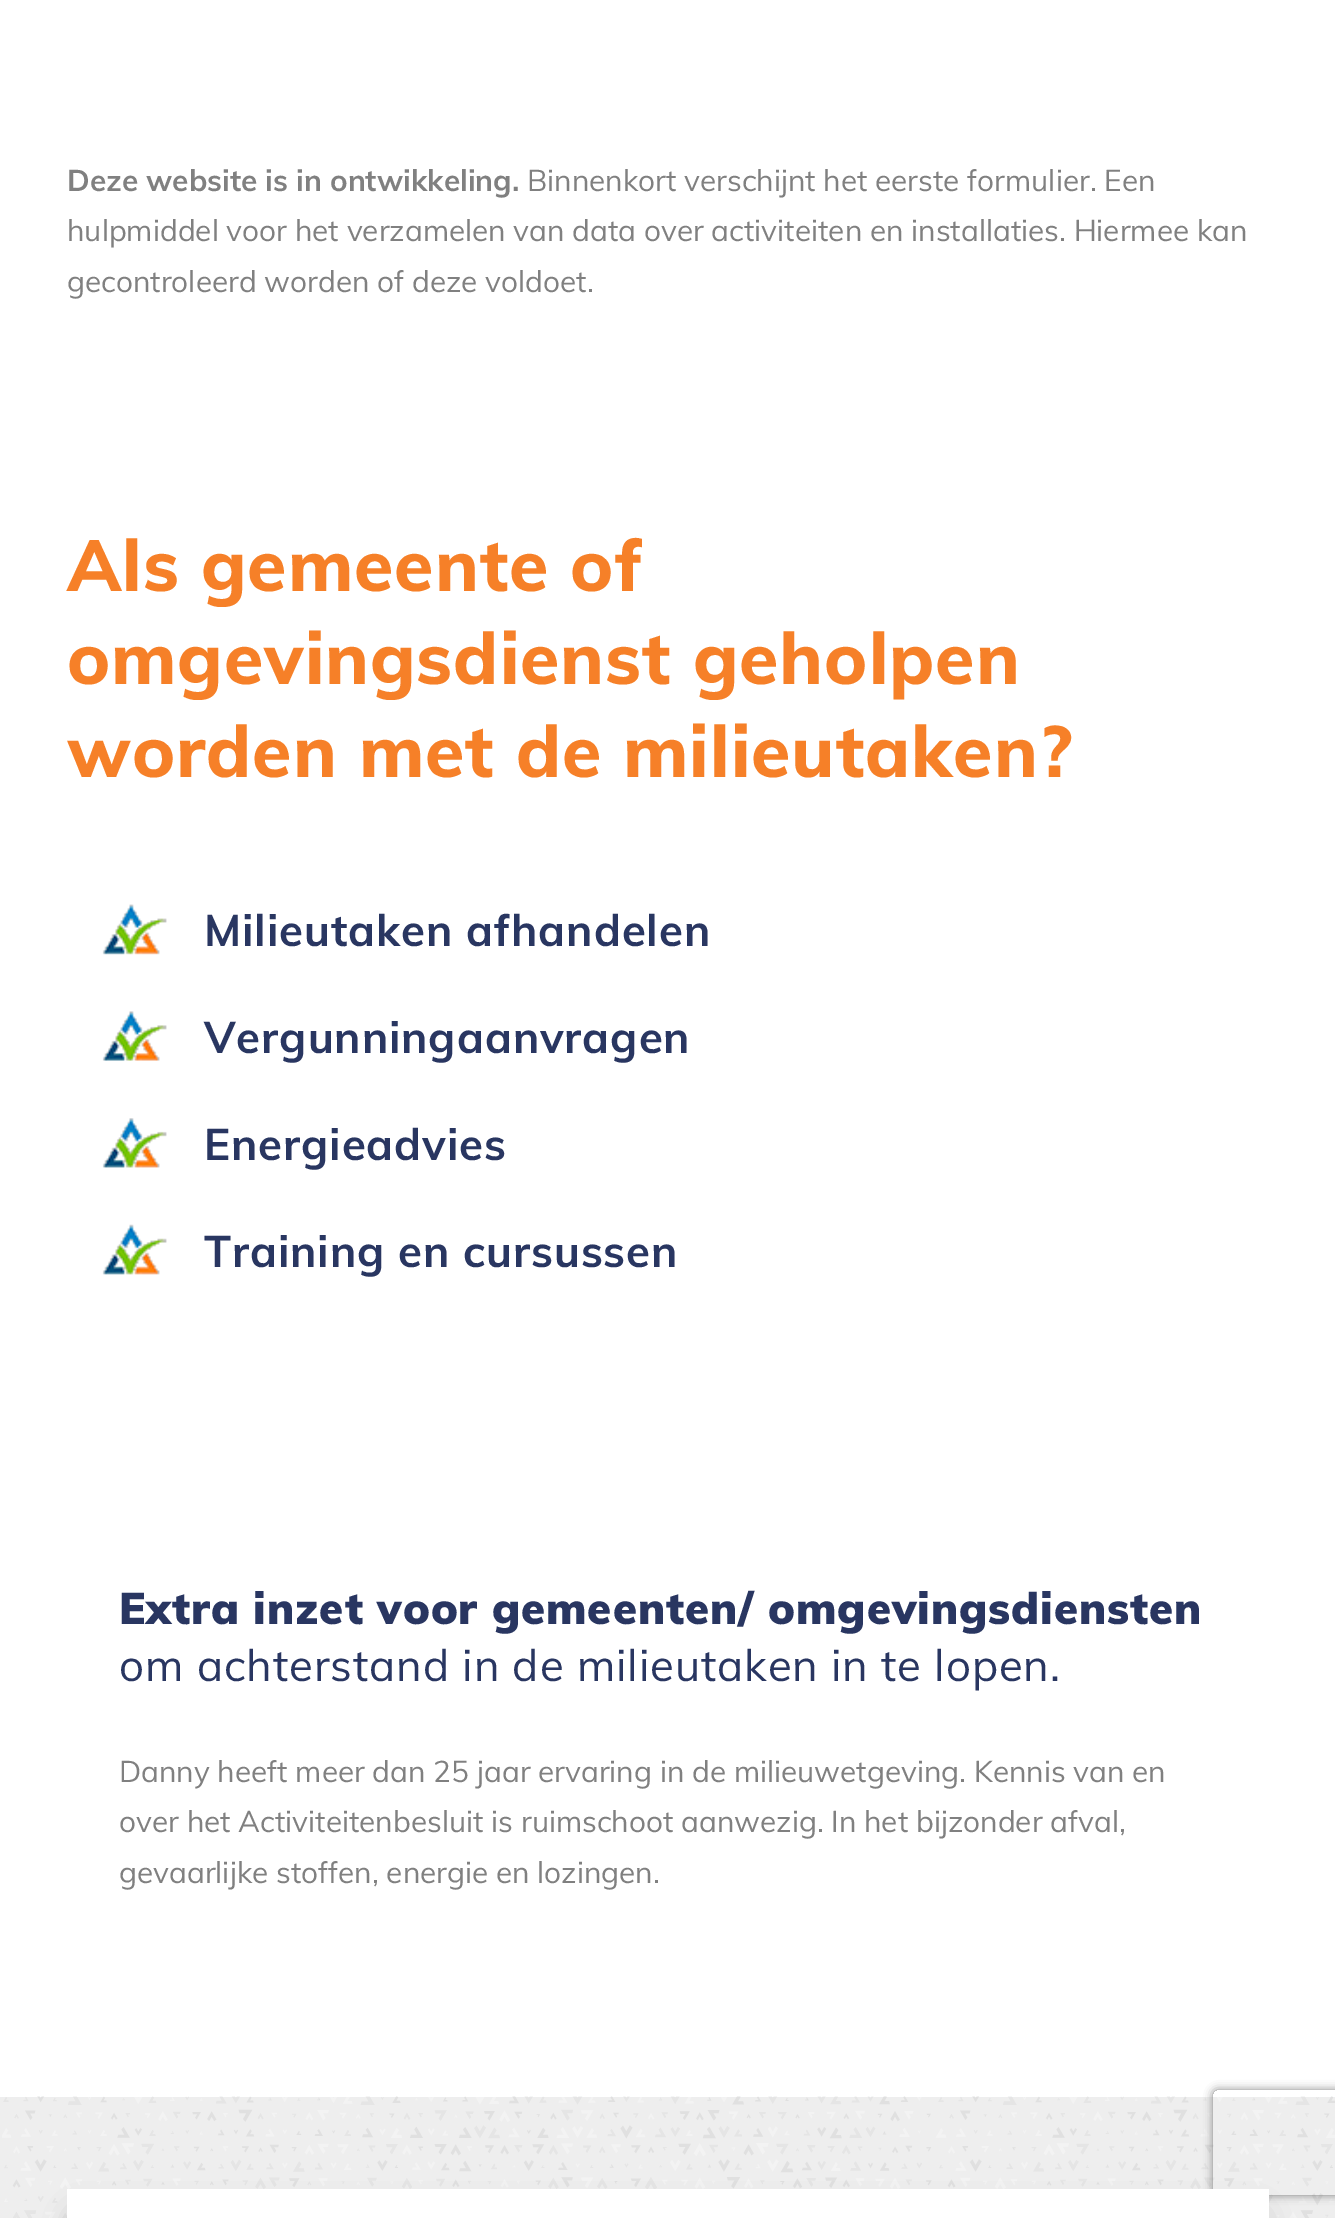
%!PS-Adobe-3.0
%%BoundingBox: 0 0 1335 2218
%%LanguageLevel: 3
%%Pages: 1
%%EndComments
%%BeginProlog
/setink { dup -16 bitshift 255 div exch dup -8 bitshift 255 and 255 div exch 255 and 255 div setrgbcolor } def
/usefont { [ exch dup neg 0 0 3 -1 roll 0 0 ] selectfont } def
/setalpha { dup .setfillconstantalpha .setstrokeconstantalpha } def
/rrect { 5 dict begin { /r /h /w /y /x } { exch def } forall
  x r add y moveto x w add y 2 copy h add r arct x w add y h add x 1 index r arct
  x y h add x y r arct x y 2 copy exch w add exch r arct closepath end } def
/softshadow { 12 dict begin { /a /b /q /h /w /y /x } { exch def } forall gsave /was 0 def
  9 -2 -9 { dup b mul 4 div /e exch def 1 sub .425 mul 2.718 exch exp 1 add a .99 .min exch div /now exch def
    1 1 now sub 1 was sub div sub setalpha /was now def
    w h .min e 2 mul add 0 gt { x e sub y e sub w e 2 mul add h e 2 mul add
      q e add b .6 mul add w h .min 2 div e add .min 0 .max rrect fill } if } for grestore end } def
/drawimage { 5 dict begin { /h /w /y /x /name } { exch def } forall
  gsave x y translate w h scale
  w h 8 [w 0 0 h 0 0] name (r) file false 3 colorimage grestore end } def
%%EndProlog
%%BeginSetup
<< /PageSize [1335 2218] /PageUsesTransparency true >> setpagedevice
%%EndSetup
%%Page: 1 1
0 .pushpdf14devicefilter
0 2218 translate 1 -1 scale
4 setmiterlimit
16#FFFFFF setink
0 0 1335 2218 rectfill
/Muli-Bold 29.75 usefont
16#808080 setink
67 191 moveto (Deze website is in ontwikkeling.) show
/Muli-Regular 29.75 usefont
[
    [(Binnenkort verschijnt het eerste formulier. Een) 527 191]
    [(hulpmiddel voor het verzamelen van data over activiteiten en installaties. Hiermee kan) 67 241]
    [(gecontroleerd worden of deze voldoet.) 67 292]
] { aload pop moveto show } forall
/Muli-ExtraBold 71.75 usefont
16#F68028 setink
67 591 moveto 0.9 0 (Als gemeente of) ashow
67 684 moveto 0.9 0 (omgevingsdienst geholpen) ashow
67 777 moveto 0.9 0 (worden met de milieutaken?) ashow
(img1.raw) 102 904 65 51 drawimage
/Muli-Bold 43.75 usefont
16#293661 setink
204 946 moveto 0.9 0 (Milieutaken afhandelen) ashow
(img2.raw) 102 1011 65 50 drawimage
204 1053 moveto 0.9 0 (Vergunningaanvragen) ashow
(img3.raw) 102 1118 65 50 drawimage
204 1160 moveto 0.9 0 (Energieadvies) ashow
(img4.raw) 102 1224 65 51 drawimage
204 1267 moveto 0.9 0 (Training en cursussen) ashow
/Muli-Black 43.75 usefont
119 1624 moveto 0.9 0 (Extra inzet voor gemeenten/ omgevingsdiensten) ashow
/Muli-Regular 43.75 usefont
119 1681 moveto 0.9 0 (om achterstand in de milieutaken in te lopen.) ashow
/Muli-Regular 29.75 usefont
16#808080 setink
[
    [(Danny heeft meer dan 25 jaar ervaring in de milieuwetgeving. Kennis van en) 119 1782]
    [(over het Activiteitenbesluit is ruimschoot aanwezig. In het bijzonder afval,) 119 1832]
    [(gevaarlijke stoffen, energie en lozingen.) 119 1883]
] { aload pop moveto show } forall
16#EEEEEE setink
0 2097 1335 121 rectfill
(img5.raw) 2 2096 1333 122 drawimage
16#000000 setink
77 2217 1181 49 0 16 0.3 softshadow
gsave
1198 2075 moveto 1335 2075 lineto 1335 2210 lineto 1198 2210 lineto closepath 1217 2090 moveto 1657 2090 lineto 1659 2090 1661 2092 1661 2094 curveto 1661 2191 lineto 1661 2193 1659 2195 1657 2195 curveto 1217 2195 lineto 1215 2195 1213 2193 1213 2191 curveto 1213 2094 lineto 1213 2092 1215 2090 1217 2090 curveto closepath eoclip newpath
16#808080 setink
1213 2090 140 105 4 4.5 1 softshadow
grestore
16#FFFFFF setink
67 2189 1202 29 rectfill
.poppdf14devicefilter showpage
%%EOF
